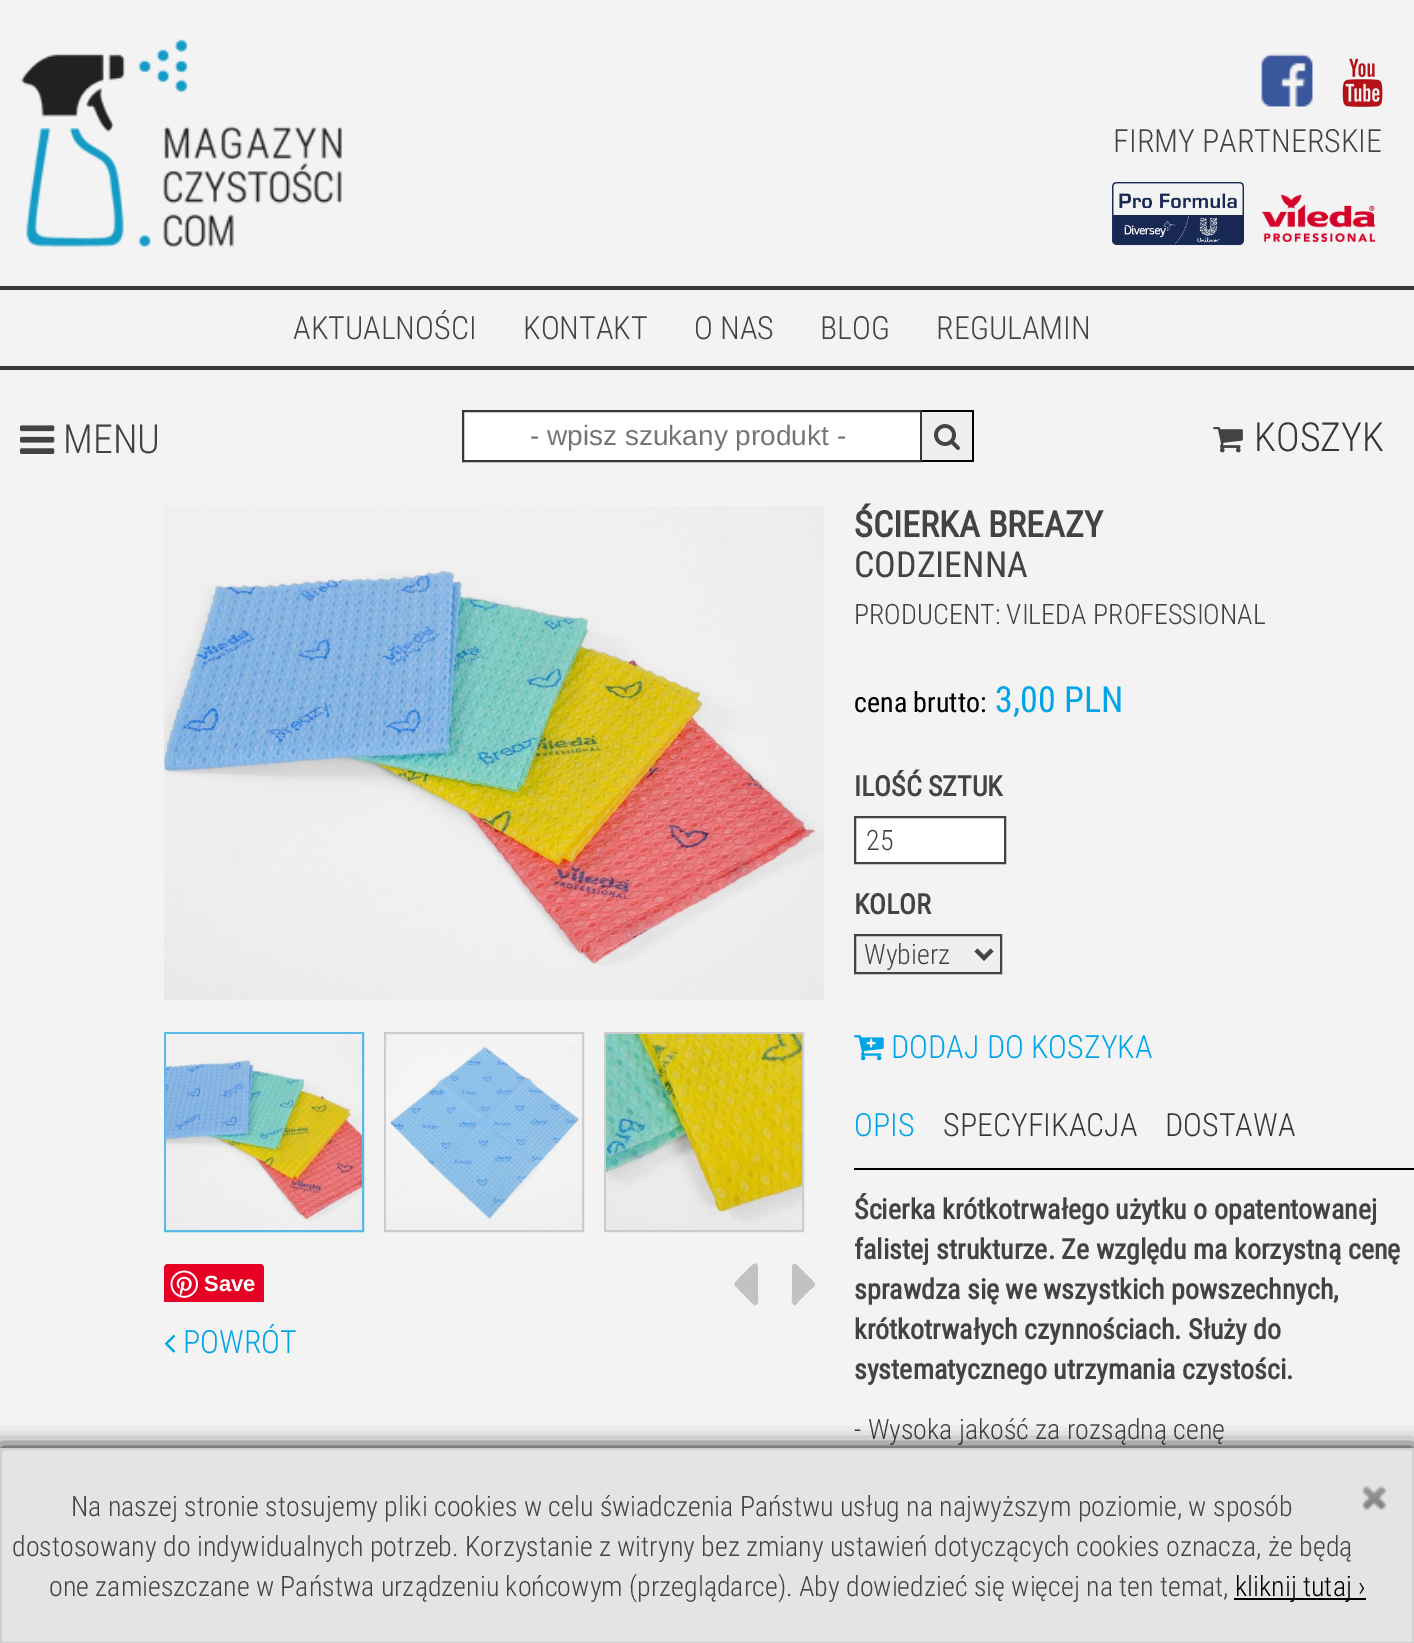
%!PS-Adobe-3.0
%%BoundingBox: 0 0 1414 1643
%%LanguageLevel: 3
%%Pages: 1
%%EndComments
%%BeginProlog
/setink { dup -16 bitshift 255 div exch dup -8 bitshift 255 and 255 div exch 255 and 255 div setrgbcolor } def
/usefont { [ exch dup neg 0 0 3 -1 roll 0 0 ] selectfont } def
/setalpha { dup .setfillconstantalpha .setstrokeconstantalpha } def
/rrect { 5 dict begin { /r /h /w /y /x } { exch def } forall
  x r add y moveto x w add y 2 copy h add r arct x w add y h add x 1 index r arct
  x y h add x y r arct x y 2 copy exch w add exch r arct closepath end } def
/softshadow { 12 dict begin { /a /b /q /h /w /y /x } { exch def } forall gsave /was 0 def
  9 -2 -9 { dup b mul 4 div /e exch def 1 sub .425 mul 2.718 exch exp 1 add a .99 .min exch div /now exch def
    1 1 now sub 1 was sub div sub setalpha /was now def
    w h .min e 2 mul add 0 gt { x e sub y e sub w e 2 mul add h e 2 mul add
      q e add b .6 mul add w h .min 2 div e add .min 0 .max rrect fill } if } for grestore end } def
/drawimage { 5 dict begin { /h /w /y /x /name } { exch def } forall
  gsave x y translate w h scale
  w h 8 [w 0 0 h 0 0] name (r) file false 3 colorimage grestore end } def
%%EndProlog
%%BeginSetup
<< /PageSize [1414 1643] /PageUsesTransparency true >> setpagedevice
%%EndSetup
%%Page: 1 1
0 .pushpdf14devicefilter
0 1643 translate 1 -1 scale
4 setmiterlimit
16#F3F3F3 setink
0 0 1414 1643 rectfill
16#373737 setink
0 366 1414 4 rectfill
(img1.raw) 21 39 321 208 drawimage
(img2.raw) 1261 53 52 54 drawimage
(img3.raw) 1342 58 41 49 drawimage
/RobotoCondensed-Light 32 usefont
16#444343 setink
1113 152 moveto (FIRMY PARTNERSKIE) show
(img4.raw) 1112 182 132 64 drawimage
(img5.raw) 1261 194 115 48 drawimage
16#373737 setink
0 286 1414 4 rectfill
16#444343 setink
[
    [(AKTUALNOŚCI) 293 339]
    [(KONTAKT) 523 339]
    [(O NAS) 694 339]
    [(BLOG) 820 339]
    [(REGULAMIN) 936 339]
] { aload pop moveto show } forall
(img6.raw) 20 425 35 29 drawimage
/RobotoCondensed-Light 40 usefont
63 453 moveto (MENU) show
16#FFFFFF setink
463 411 moveto 921 411 lineto 921 461 lineto 463 461 lineto closepath gsave fill grestore
16#373737 setink
2 setlinewidth
stroke
/LiberationSans-Regular 28 usefont
16#757575 setink
530 445 moveto (- wpisz szukany produkt -) show
[
    [922 412 50 48 16#EFEFEF]
    [922 410 52 2 16#000000]
    [972 410 2 52 16#000000]
    [922 460 52 2 16#000000]
] { aload pop setink rectfill } forall
(img7.raw) 934 424 26 26 drawimage
(img8.raw) 1213 427 30 26 drawimage
/RobotoCondensed-Light 40 usefont
16#373737 setink
1254 451 moveto (KOSZYK) show
(img9.raw) 164 506 660 494 drawimage
16#59BBE6 setink
165 1033 198 198 rectstroke
(img10.raw) 166 1034 196 196 drawimage
16#CCCCCC setink
385 1033 198 198 rectstroke
(img11.raw) 386 1044 196 186 drawimage
605 1033 198 198 rectstroke
(img12.raw) 606 1034 196 196 drawimage
16#C2C2C2 setink
758 1266 moveto 758 1296 lineto 758 1298 759 1303 756 1305 curveto 753 1306 749 1299 747 1298 curveto 735 1286 lineto 733 1284 737 1281 738 1279 curveto 750 1267 lineto 752 1266 754 1262 757 1264 curveto closepath fill
814 1282 moveto 817 1285 813 1288 811 1289 curveto 799 1301 lineto 798 1302 795 1307 793 1304 curveto 791 1302 792 1297 792 1296 curveto 792 1266 lineto 794 1261 798 1266 799 1267 curveto closepath fill
gsave
164 1262 660 40 rectclip
16#E60023 setink
164 1264 100 40 4 rrect fill
grestore
(img13.raw) 170 1270 28 28 drawimage
/LiberationSans-Bold 22 usefont
16#FFFFFF setink
204 1291 moveto (Save) show
(img14.raw) 164 1334 12 19 drawimage
/RobotoCondensed-Light 32 usefont
16#00A4E7 setink
183 1353 moveto (POWRÓT) show
/RobotoCondensed-Bold 36 usefont
16#444343 setink
854 537 moveto (ŚCIERKA BREAZY) show
/RobotoCondensed-Regular 36 usefont
854 577 moveto (CODZIENNA) show
/RobotoCondensed-Light 28 usefont
854 624 moveto (PRODUCENT: VILEDA PROFESSIONAL) show
/RobotoCondensed-Regular 28 usefont
16#000000 setink
854 712 moveto (cena brutto:) show
/RobotoCondensed-Regular 36 usefont
16#00A4E7 setink
995 712 moveto (3,00 PLN) show
/RobotoCondensed-Bold 28 usefont
16#444343 setink
854 796 moveto (ILOŚĆ SZTUK) show
16#FFFFFF setink
855 817 moveto 1005 817 lineto 1005 863 lineto 855 863 lineto closepath gsave fill grestore
16#444343 setink
stroke
/RobotoCondensed-Light 28 usefont
866 850 moveto (25) show
/RobotoCondensed-Bold 28 usefont
854 914 moveto (KOLOR) show
16#EFEFEF setink
855 935 moveto 1001 935 lineto 1001 973 lineto 855 973 lineto closepath gsave fill grestore
16#444343 setink
stroke
4 setlinewidth
976 950 moveto 984 958 lineto 992 950 lineto stroke
/RobotoCondensed-Light 28 usefont
864 964 moveto (Wybierz) show
(img15.raw) 854 1035 30 26 drawimage
/RobotoCondensed-Light 32 usefont
16#00A4E7 setink
891 1058 moveto (DODAJ DO KOSZYKA) show
16#000000 setink
854 1168 560 2 rectfill
16#00A4E7 setink
854 1136 moveto (OPIS) show
16#373737 setink
943 1136 moveto (SPECYFIKACJA) show
1165 1136 moveto (DOSTAWA) show
/RobotoCondensed-Bold 28 usefont
16#444343 setink
[
    [(Ścierka krótkotrwałego użytku o opatentowanej) 854 1219]
    [(falistej strukturze. Ze względu ma korzystną cenę) 854 1259]
    [(sprawdza się we wszystkich powszechnych,) 854 1299]
    [(krótkotrwałych czynnościach. Służy do) 854 1339]
    [(systematycznego utrzymania czystości.) 854 1379]
] { aload pop moveto show } forall
/RobotoCondensed-Light 28 usefont
854 1439 moveto (- Wysoka jakość za rozsądną cenę) show
16#000000 setink
0 1448 1414 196 0 10 1 softshadow
16#E4E4E4 setink
1 1449 moveto 1413 1449 lineto 1413 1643 lineto 1 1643 lineto closepath gsave fill grestore
16#D0D0D0 setink
2 setlinewidth
stroke
16#444343 setink
[
    [(Na naszej stronie stosujemy pliki cookies w celu świadczenia Państwu usług na najwyższym poziomie, w sposób) 71 1516]
    [(dostosowany do indywidualnych potrzeb. Korzystanie z witryny bez zmiany ustawień dotyczących cookies oznacza, że będą) 12 1556]
    [(one zamieszczane w Państwa urządzeniu końcowym \(przeglądarce\). Aby dowiedzieć się więcej na ten temat,) 49 1596]
] { aload pop moveto show } forall
16#000000 setink
1234 1598 132 2 rectfill
1235 1596 moveto (kliknij tutaj ›) show
(img16.raw) 1362 1486 24 24 drawimage
.poppdf14devicefilter showpage
%%EOF
